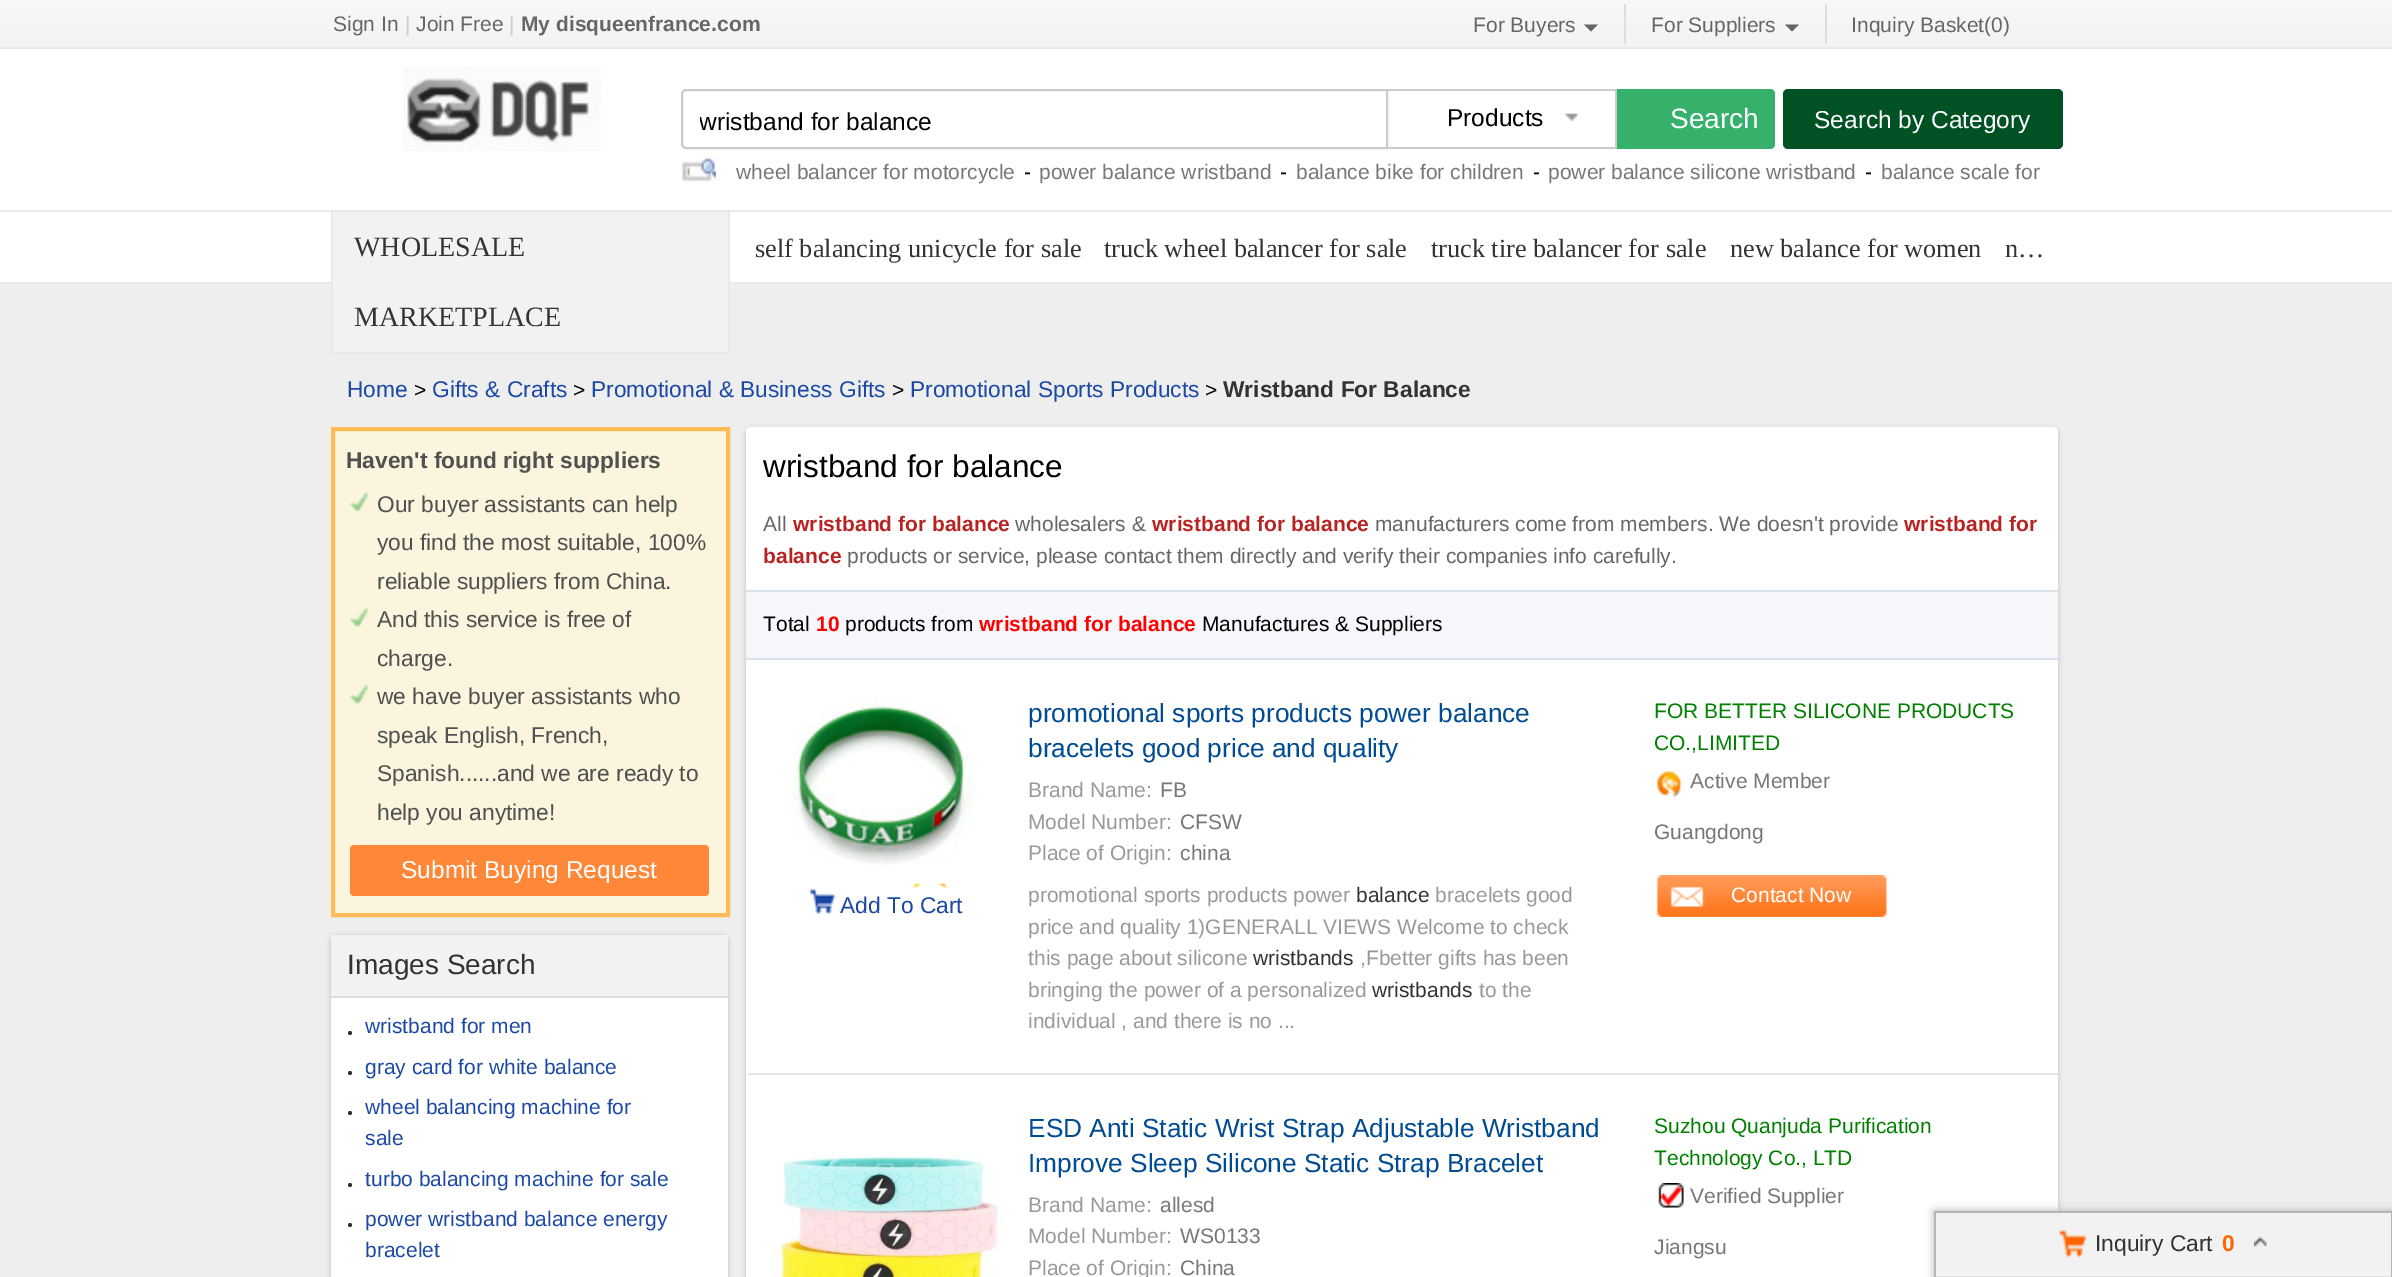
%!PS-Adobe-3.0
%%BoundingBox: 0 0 2392 1277
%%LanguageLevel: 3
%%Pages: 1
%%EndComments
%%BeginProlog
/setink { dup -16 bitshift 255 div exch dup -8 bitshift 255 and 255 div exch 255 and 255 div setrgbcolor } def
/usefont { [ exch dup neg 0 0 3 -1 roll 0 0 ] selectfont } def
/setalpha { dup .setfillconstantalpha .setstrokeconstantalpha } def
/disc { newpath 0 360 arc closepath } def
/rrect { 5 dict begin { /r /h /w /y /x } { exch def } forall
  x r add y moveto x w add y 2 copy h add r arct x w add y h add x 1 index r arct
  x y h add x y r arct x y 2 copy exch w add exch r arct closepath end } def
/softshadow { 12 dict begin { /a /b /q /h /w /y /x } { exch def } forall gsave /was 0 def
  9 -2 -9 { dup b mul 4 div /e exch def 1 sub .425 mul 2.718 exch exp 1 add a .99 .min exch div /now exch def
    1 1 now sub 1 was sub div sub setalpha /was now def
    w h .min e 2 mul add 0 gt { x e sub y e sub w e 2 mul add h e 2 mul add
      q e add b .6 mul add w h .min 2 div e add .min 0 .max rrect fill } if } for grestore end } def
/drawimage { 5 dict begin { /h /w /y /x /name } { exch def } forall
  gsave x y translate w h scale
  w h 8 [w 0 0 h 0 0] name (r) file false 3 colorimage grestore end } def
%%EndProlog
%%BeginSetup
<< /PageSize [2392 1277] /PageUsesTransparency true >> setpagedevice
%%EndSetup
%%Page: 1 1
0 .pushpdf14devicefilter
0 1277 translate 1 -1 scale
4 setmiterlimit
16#EEEEEE setink
0 0 2392 1277 rectfill
[
    [0 49 2392 233 16#FFFFFF]
    [0 282 2392 2 16#E9E9E9]
    [0 210 2392 2 16#E9E9E9]
] { aload pop setink rectfill } forall
gsave 0 0 moveto 2392 0 lineto 2392 47 lineto 0 47 lineto closepath clip newpath
<< /ShadingType 2 /ColorSpace /DeviceRGB /Coords [1196 0 1196 47] /Extend [true true] /Function << /FunctionType 2 /Domain [0 1] /C0 [0.973 0.973 0.973] /C1 [0.953 0.953 0.953] /N 1 >> >> shfill grestore
0 47 2392 2 rectfill
/LiberationSans-Regular 21 usefont
16#666666 setink
333 31 moveto (Sign In) show
16#CCCCCC setink
405 31 moveto (|) show
16#666666 setink
416 31 moveto (Join Free) show
16#CCCCCC setink
509 31 moveto (|) show
/LiberationSans-Bold 21 usefont
16#666666 setink
521 31 moveto (My disqueenfrance.com) show
16#DDDDDD setink
1624 4 2 40 rectfill
/LiberationSans-Regular 21 usefont
16#666666 setink
1473 32 moveto (For Buyers) show
1584 24.5 moveto 1598 24.5 lineto 1591 31.5 lineto closepath fill
16#DDDDDD setink
1825 4 2 40 rectfill
16#666666 setink
1651 32 moveto (For Suppliers) show
1785 24.5 moveto 1799 24.5 lineto 1792 31.5 lineto closepath fill
1851 32 moveto (Inquiry Basket\(0\)) show
(img1.raw) 403 67 198 84 drawimage
16#CBCBCB setink
2 setlinewidth
686 90 moveto 1387 90 lineto 1387 148 lineto 686 148 lineto 684 148 682 146 682 144 curveto 682 94 lineto 682 92 684 90 686 90 curveto closepath stroke
gsave
700 103 628 35 rectclip
/LiberationSans-Regular 24.5 usefont
16#000000 setink
699 130 moveto (wristband for balance) show
grestore
[
    [1388 89 229 2 16#CBCBCB]
    [1615 89 2 60 16#CBCBCB]
    [1388 147 229 2 16#CBCBCB]
] { aload pop setink rectfill } forall
/LiberationSans-Regular 24.5 usefont
16#000000 setink
1447 126 moveto (Products) show
(img2.raw) 1564 113 14 9 drawimage
16#35B16C setink
1617 89 moveto 1770 89 lineto 1773 89 1775 91 1775 94 curveto 1775 144 lineto 1775 147 1773 149 1770 149 curveto 1617 149 lineto closepath fill
/LiberationSans-Regular 28 usefont
16#FFFFFF setink
1670 128 moveto (Search) show
(img3.raw) 682 157 34 28 drawimage
/LiberationSans-Regular 21 usefont
16#777777 setink
736 179 moveto (wheel balancer for motorcycle) show
16#000000 setink
1024 179 moveto (-) show
16#777777 setink
1039 179 moveto (power balance wristband) show
16#000000 setink
1280 179 moveto (-) show
16#777777 setink
1296 179 moveto (balance bike for children) show
16#000000 setink
1533 179 moveto (-) show
16#777777 setink
1548 179 moveto (power balance silicone wristband) show
16#000000 setink
1865 179 moveto (-) show
16#777777 setink
1881 179 moveto (balance scale for) show
16#005124 setink
1783 89 280 60 5 rrect fill
/LiberationSans-Regular 24.5 usefont
16#FFFFFF setink
1814 128 moveto (Search by Category) show
[
    [333 212 395 140 16#F2F2F2]
    [728 212 2 142 16#E9E9E9]
    [331 352 399 2 16#E9E9E9]
    [331 212 2 142 16#E9E9E9]
] { aload pop setink rectfill } forall
/LiberationSerif-Regular 28 usefont
16#333333 setink
354 256 moveto (WHOLESALE) show
354 326 moveto (MARKETPLACE) show
/LiberationSerif-Regular 26.25 usefont
[
    [(self balancing unicycle for sale) 755 257]
    [(truck wheel balancer for sale) 1104 257]
    [(truck tire balancer for sale) 1431 257]
    [(new balance for women) 1730 257]
    [(n…) 2005 257]
] { aload pop moveto show } forall
/LiberationSans-Regular 22.75 usefont
16#1C49A4 setink
347 397 moveto (Home) show
/LiberationSans-Regular 21 usefont
16#000000 setink
414 397 moveto (>) show
/LiberationSans-Regular 22.75 usefont
16#1C49A4 setink
432 397 moveto (Gifts & Crafts) show
/LiberationSans-Regular 21 usefont
16#000000 setink
573 397 moveto (>) show
/LiberationSans-Regular 22.75 usefont
16#1C49A4 setink
591 397 moveto (Promotional & Business Gifts) show
/LiberationSans-Regular 21 usefont
16#000000 setink
892 397 moveto (>) show
/LiberationSans-Regular 22.75 usefont
16#1C49A4 setink
910 397 moveto (Promotional Sports Products) show
/LiberationSans-Regular 21 usefont
16#000000 setink
1205 397 moveto (>) show
/LiberationSans-Bold 22.75 usefont
16#333333 setink
1223 397 moveto (Wristband For Balance) show
16#FBF5DE setink
333 429 moveto 728 429 lineto 728 915 lineto 333 915 lineto closepath gsave fill grestore
16#FFBB55 setink
4 setlinewidth
stroke
16#505050 setink
346 468 moveto (Haven't found right suppliers) show
(img4.raw) 350 491 20 21 drawimage
/LiberationSans-Regular 22.75 usefont
[
    [(Our buyer assistants can help) 377 512]
    [(you find the most suitable, 100%) 377 550]
    [(reliable suppliers from China.) 377 589]
] { aload pop moveto show } forall
(img5.raw) 350 607 20 20 drawimage
377 627 moveto (And this service is free of) show
377 666 moveto (charge.) show
(img5.raw) 350 684 20 20 drawimage
[
    [(we have buyer assistants who) 377 704]
    [(speak English, French,) 377 743]
    [(Spanish......and we are ready to) 377 781]
    [(help you anytime!) 377 820]
] { aload pop moveto show } forall
16#FF8838 setink
350 845 359 51 4 rrect fill
/LiberationSans-Regular 24.5 usefont
16#FFFFFF setink
401 878 moveto (Submit Buying Request) show
16#000000 setink
331 936 397 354 5 2.5 0.2 softshadow
[
    [331 998 397 279 16#FFFFFF]
    [331 935 397 61 16#F2F2F2]
    [331 996 397 2 16#DDDDDD]
] { aload pop setink rectfill } forall
/LiberationSans-Regular 28 usefont
16#333333 setink
347 974 moveto (Images Search) show
350 1033 2 disc fill
/LiberationSans-Regular 21 usefont
16#1C49A4 setink
365 1033 moveto (wristband for men) show
16#333333 setink
350 1073 2 disc fill
16#1C49A4 setink
365 1074 moveto (gray card for white balance) show
16#333333 setink
350 1113 2 disc fill
16#1C49A4 setink
365 1114 moveto (wheel balancing machine for) show
365 1145 moveto (sale) show
16#333333 setink
350 1185 2 disc fill
16#1C49A4 setink
365 1186 moveto (turbo balancing machine for sale) show
16#333333 setink
350 1225 2 disc fill
16#1C49A4 setink
365 1226 moveto (power wristband balance energy) show
365 1257 moveto (bracelet) show
16#000000 setink
746 429 1312 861 5 2.5 0.2 softshadow
16#FFFFFF setink
746 427 1312 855 5 rrect fill
/LiberationSans-Regular 31.5 usefont
16#000000 setink
763 477 moveto (wristband for balance) show
/LiberationSans-Regular 21 usefont
16#666666 setink
763 531 moveto (All) show
/LiberationSans-Bold 21 usefont
16#B82220 setink
793 531 moveto (wristband for balance) show
/LiberationSans-Regular 21 usefont
16#666666 setink
1015 531 moveto (wholesalers &) show
/LiberationSans-Bold 21 usefont
16#B82220 setink
1152 531 moveto (wristband for balance) show
/LiberationSans-Regular 21 usefont
16#666666 setink
1375 531 moveto (manufacturers come from members. We doesn't provide) show
/LiberationSans-Bold 21 usefont
16#B82220 setink
1904 531 moveto (wristband for) show
763 563 moveto (balance) show
/LiberationSans-Regular 21 usefont
16#666666 setink
847 563 moveto (products or service, please contact them directly and verify their companies info carefully.) show
[
    [746 592 1312 66 16#F6F7FB]
    [746 590 1312 2 16#DAE2ED]
    [746 658 1312 2 16#DAE2ED]
] { aload pop setink rectfill } forall
16#000000 setink
763 631 moveto (Total) show
/LiberationSans-Bold 21 usefont
16#FF0000 setink
816 631 moveto (10) show
/LiberationSans-Regular 21 usefont
16#000000 setink
845 631 moveto (products from) show
/LiberationSans-Bold 21 usefont
16#FF0000 setink
979 631 moveto (wristband for balance) show
/LiberationSans-Regular 21 usefont
16#000000 setink
1202 631 moveto (Manufactures & Suppliers) show
16#E5E5E5 setink
746 1073 1312 2 rectfill
16#FFFFFF setink
746 1073 2 2 rectfill
/LiberationSans-Regular 26.25 usefont
16#004B91 setink
1028 722 moveto (promotional sports products power balance) show
1028 757 moveto (bracelets good price and quality) show
/LiberationSans-Regular 21 usefont
16#999999 setink
1028 797 moveto (Brand Name:) show
16#777777 setink
1160 797 moveto (FB) show
16#999999 setink
1028 829 moveto (Model Number:) show
16#777777 setink
1180 829 moveto (CFSW) show
16#999999 setink
1028 860 moveto (Place of Origin:) show
16#777777 setink
1180 860 moveto (china) show
16#999999 setink
1028 902 moveto (promotional sports products power) show
16#333333 setink
1356 902 moveto (balance) show
16#999999 setink
[
    [(bracelets good) 1435 902]
    [(price and quality 1\)GENERALL VIEWS Welcome to check) 1028 934]
    [(this page about silicone) 1028 965]
] { aload pop moveto show } forall
16#333333 setink
1253 965 moveto (wristbands) show
16#999999 setink
1360 965 moveto (,Fbetter gifts has been) show
1028 997 moveto (bringing the power of a personalized) show
16#333333 setink
1372 997 moveto (wristbands) show
16#999999 setink
1479 997 moveto (to the) show
1028 1028 moveto (individual , and there is no ...) show
16#008000 setink
1654 718 moveto (FOR BETTER SILICONE PRODUCTS) show
1654 750 moveto (CO.,LIMITED) show
(img6.raw) 1656 770 27 27 drawimage
16#777777 setink
1690 788 moveto (Active Member) show
1654 839 moveto (Guangdong) show
(img7.raw) 1656 875 231 42 drawimage
16#FFFFFF setink
1731 902 moveto (Contact Now) show
(img8.raw) 792 696 183 169 drawimage
(img9.raw) 809 883 138 31 drawimage
/LiberationSans-Regular 22.75 usefont
16#1C49A4 setink
840 913 moveto (Add To Cart) show
(img10.raw) 770 1153 231 124 drawimage
/LiberationSans-Regular 26.25 usefont
16#004B91 setink
1028 1137 moveto (ESD Anti Static Wrist Strap Adjustable Wristband) show
1028 1172 moveto (Improve Sleep Silicone Static Strap Bracelet) show
/LiberationSans-Regular 21 usefont
16#999999 setink
1028 1212 moveto (Brand Name:) show
16#777777 setink
1160 1212 moveto (allesd) show
16#999999 setink
1028 1243 moveto (Model Number:) show
16#777777 setink
1180 1243 moveto (WS0133) show
16#999999 setink
1028 1275 moveto (Place of Origin:) show
16#777777 setink
1180 1275 moveto (China) show
16#008000 setink
1654 1133 moveto (Suzhou Quanjuda Purification) show
1654 1165 moveto (Technology Co., LTD) show
(img11.raw) 1658 1183 26 25 drawimage
16#777777 setink
1690 1203 moveto (Verified Supplier) show
1654 1254 moveto (Jiangsu) show
16#B5B5B5 setink
1934 1211 458 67 0 4.5 1 softshadow
[
    [1934 1211 458 2 16#B5B5B5]
    [2391 1211 1 66 16#B5B5B5]
    [1934 1211 2 66 16#B5B5B5]
    [1936 1213 455 63 16#F2F2F2]
    [1936 1276 455 1 16#DEDEDE]
] { aload pop setink rectfill } forall
(img12.raw) 2059 1230 28 28 drawimage
/LiberationSans-Regular 22.75 usefont
16#333333 setink
2095 1251 moveto (Inquiry Cart) show
/LiberationSans-Bold 22.75 usefont
16#FF6600 setink
2222 1251 moveto (0) show
(img13.raw) 2254 1236 13 11 drawimage
.poppdf14devicefilter showpage
%%EOF
